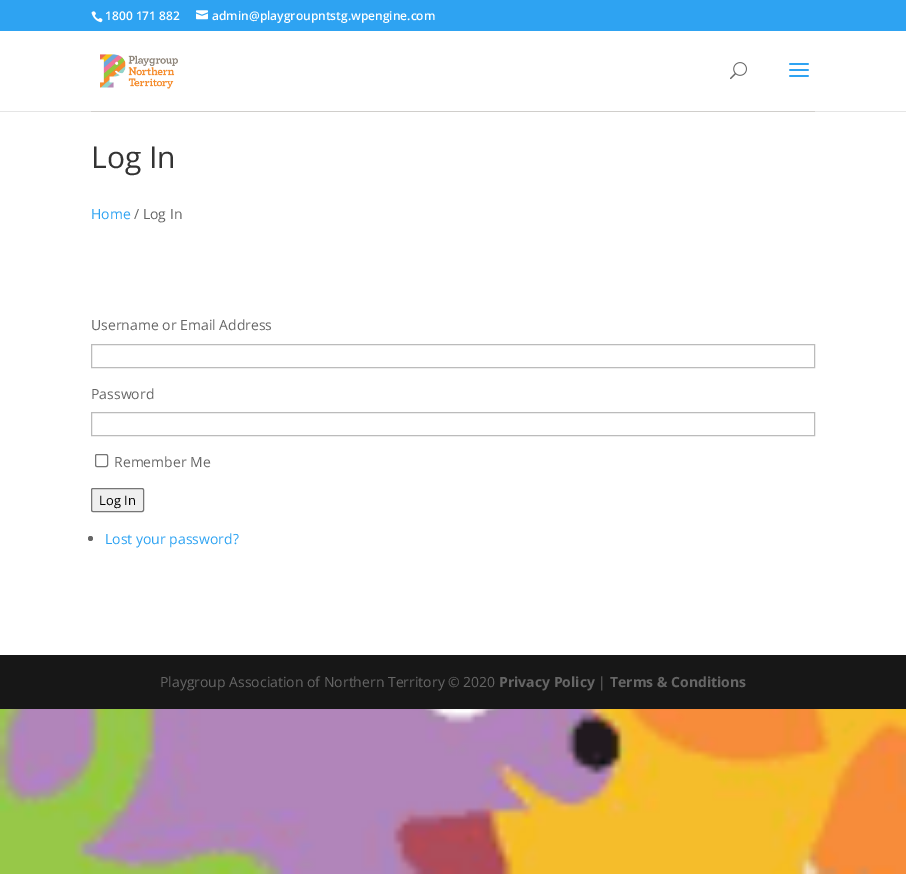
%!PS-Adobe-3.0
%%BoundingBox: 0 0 906 874
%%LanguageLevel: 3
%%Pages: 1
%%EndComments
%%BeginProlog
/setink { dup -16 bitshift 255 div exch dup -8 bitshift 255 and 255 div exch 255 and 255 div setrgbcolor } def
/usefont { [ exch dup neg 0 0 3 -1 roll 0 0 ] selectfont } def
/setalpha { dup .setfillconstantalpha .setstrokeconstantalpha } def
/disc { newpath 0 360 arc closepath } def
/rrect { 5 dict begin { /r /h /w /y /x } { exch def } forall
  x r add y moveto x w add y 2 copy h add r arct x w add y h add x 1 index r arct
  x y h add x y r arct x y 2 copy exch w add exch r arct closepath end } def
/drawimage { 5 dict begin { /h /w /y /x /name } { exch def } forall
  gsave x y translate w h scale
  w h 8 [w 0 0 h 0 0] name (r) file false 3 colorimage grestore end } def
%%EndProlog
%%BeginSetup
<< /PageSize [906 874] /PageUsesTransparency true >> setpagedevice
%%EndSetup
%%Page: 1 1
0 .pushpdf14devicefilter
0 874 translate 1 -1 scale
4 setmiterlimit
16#FFFFFF setink
0 0 906 874 rectfill
(img1.raw) 0 709 906 165 drawimage
16#2EA3F2 setink
0 0 906 31 rectfill
(img2.raw) 91 11 12 12 drawimage
/OpenSans-SemiBold 12 usefont
16#FFFFFF setink
105 20 moveto (1800 171 882) show
(img3.raw) 196 10 12 10 drawimage
212 20 moveto (admin@playgroupntstg.wpengine.com) show
16#E8E5E2 setink
91 111 724 1 rectfill
0.1 setalpha
16#000000 setink
0 111 906 1 rectfill
1 setalpha
(img4.raw) 100 54 78 35 drawimage
(img5.raw) 730 62 17 18 drawimage
(img6.raw) 789 63 20 14 drawimage
/OpenSans-Regular 30 usefont
16#333333 setink
91 168 moveto (Log In) show
/OpenSans-Regular 14 usefont
16#2EA3F2 setink
91 219 moveto (Home) show
16#666666 setink
134 219 moveto (/ Log In) show
91 330 moveto (Username or Email Address) show
16#BBBBBB setink
91.5 344.5 723 23 rectstroke
16#666666 setink
91 399 moveto (Password) show
16#BBBBBB setink
91.5 412.5 723 23 rectstroke
16#767676 setink
95.5 454.5 12 12 1.5 rrect stroke
16#666666 setink
114 467 moveto (Remember Me) show
16#EFEFEF setink
91.5 488.5 52 23 1.5 rrect gsave fill grestore
16#767676 setink
stroke
/OpenSans-Regular 13 usefont
16#000000 setink
99 505 moveto (Log In) show
16#666666 setink
90.5 538.5 2.5 disc fill
/OpenSans-Regular 14 usefont
16#2EA3F2 setink
105 544 moveto (Lost your password?) show
16#171717 setink
0 655 906 54 rectfill
16#666666 setink
160 687 moveto (Playgroup Association of Northern Territory © 2020) show
/OpenSans-Bold 14 usefont
499 687 moveto (Privacy Policy) show
/OpenSans-Regular 14 usefont
598 687 moveto (|) show
/OpenSans-Bold 14 usefont
610 687 moveto (Terms & Conditions) show
.poppdf14devicefilter showpage
%%EOF
